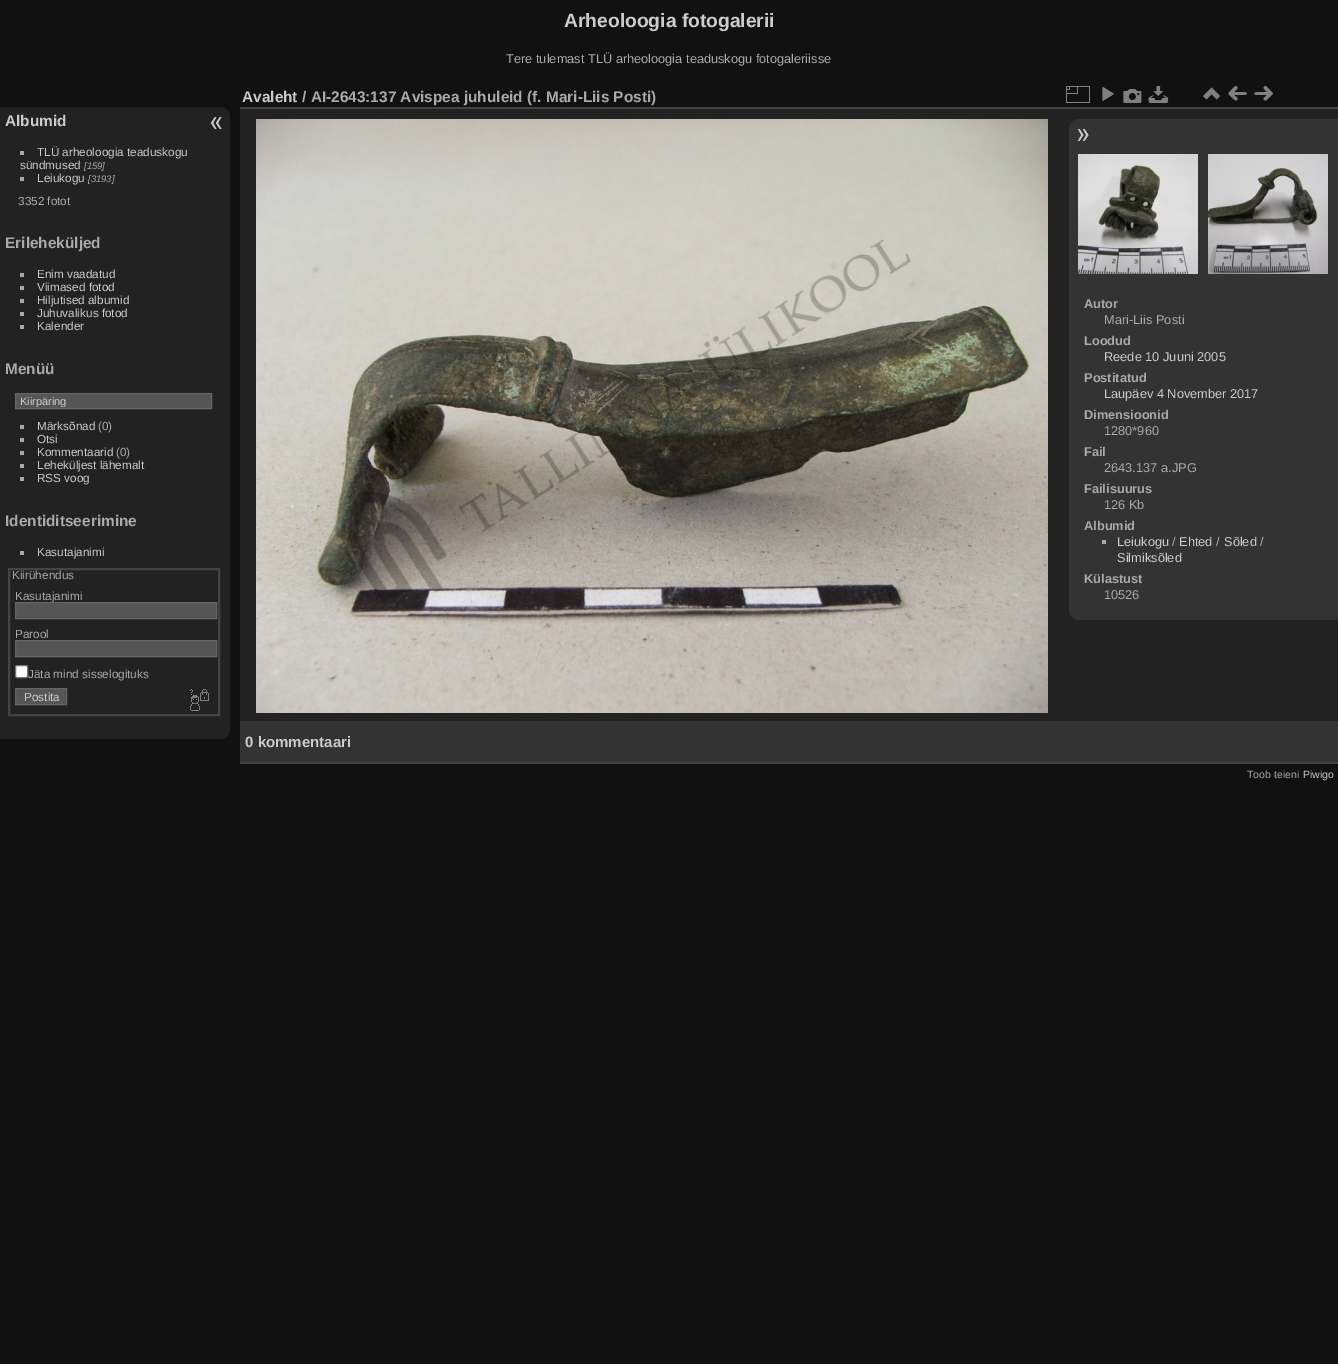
%!PS-Adobe-3.0
%%BoundingBox: 0 0 1338 1364
%%LanguageLevel: 3
%%Pages: 1
%%EndComments
%%BeginProlog
/setink { dup -16 bitshift 255 div exch dup -8 bitshift 255 and 255 div exch 255 and 255 div setrgbcolor } def
/usefont { [ exch dup neg 0 0 3 -1 roll 0 0 ] selectfont } def
/rrect { 5 dict begin { /r /h /w /y /x } { exch def } forall
  x r add y moveto x w add y 2 copy h add r arct x w add y h add x 1 index r arct
  x y h add x y r arct x y 2 copy exch w add exch r arct closepath end } def
/drawimage { 5 dict begin { /h /w /y /x /name } { exch def } forall
  gsave x y translate w h scale
  w h 8 [w 0 0 h 0 0] name (r) file false 3 colorimage grestore end } def
%%EndProlog
%%BeginSetup
<< /PageSize [1338 1364] >> setpagedevice
%%EndSetup
%%Page: 1 1
0 1364 translate 1 -1 scale
4 setmiterlimit
16#111111 setink
0 0 1338 1364 rectfill
/LiberationSans-Bold 19.25 usefont
16#CCCCCC setink
564 27 moveto (Arheoloogia fotogalerii) show
/LiberationSans-Regular 12.8 usefont
16#AAAAAA setink
506 63 moveto (Tere tulemast TLÜ arheoloogia teaduskogu fotogaleriisse) show
16#222222 setink
0 107 moveto 220 107 lineto 225.5 107 230 111.5 230 117 curveto 230 729 lineto 230 734.5 225.5 739 220 739 curveto 0 739 lineto closepath fill
/LiberationSans-Bold 15.4 usefont
16#CCCCCC setink
5 126 moveto (Albumid) show
16#AAAAAA setink
20 151 4 4 rectfill
/LiberationSans-Regular 11.75 usefont
16#CCCCCC setink
37 156 moveto (TLÜ arheoloogia teaduskogu) show
20 169 moveto (sündmused) show
/LiberationSans-Italic 9.5 usefont
16#AAAAAA setink
84 169 moveto ([159]) show
20 177 4 4 rectfill
/LiberationSans-Regular 11.75 usefont
16#CCCCCC setink
37 182 moveto (Leiukogu) show
/LiberationSans-Italic 9.5 usefont
16#AAAAAA setink
88 182 moveto ([3193]) show
/LiberationSans-Regular 11.75 usefont
18 205 moveto (3352 fotot) show
/LiberationSans-Bold 15.4 usefont
5 248 moveto (Erileheküljed) show
20 273 4 4 rectfill
/LiberationSans-Regular 11.75 usefont
16#CCCCCC setink
37 278 moveto (Enim vaadatud) show
16#AAAAAA setink
20 286 4 4 rectfill
16#CCCCCC setink
37 291 moveto (Viimased fotod) show
16#AAAAAA setink
20 299 4 4 rectfill
16#CCCCCC setink
37 304 moveto (Hiljutised albumid) show
16#AAAAAA setink
20 312 4 4 rectfill
16#CCCCCC setink
37 317 moveto (Juhuvalikus fotod) show
16#AAAAAA setink
20 325 4 4 rectfill
16#CCCCCC setink
37 330 moveto (Kalender) show
/LiberationSans-Bold 15.4 usefont
16#AAAAAA setink
5 374 moveto (Menüü) show
16#555555 setink
15.5 393.5 moveto 211.5 393.5 lineto 211.5 408.5 lineto 15.5 408.5 lineto closepath gsave fill grestore
16#666666 setink
stroke
gsave
18 395 191 12 rectclip
/LiberationSans-Regular 11 usefont
16#CCCCCC setink
20 405 moveto (Kiirpäring) show
grestore
16#AAAAAA setink
20 425 4 4 rectfill
/LiberationSans-Regular 11.75 usefont
16#CCCCCC setink
37 430 moveto (Märksõnad) show
16#AAAAAA setink
98 430 moveto (\(0\)) show
20 438 4 4 rectfill
16#CCCCCC setink
37 443 moveto (Otsi) show
16#AAAAAA setink
20 451 4 4 rectfill
16#CCCCCC setink
37 456 moveto (Kommentaarid) show
16#AAAAAA setink
116 456 moveto (\(0\)) show
20 464 4 4 rectfill
16#CCCCCC setink
37 469 moveto (Leheküljest lähemalt) show
16#AAAAAA setink
20 477 4 4 rectfill
16#CCCCCC setink
37 482 moveto (RSS voog) show
/LiberationSans-Bold 15.4 usefont
16#AAAAAA setink
5 526 moveto (Identiditseerimine) show
20 551 4 4 rectfill
/LiberationSans-Regular 11.75 usefont
16#CCCCCC setink
37 556 moveto (Kasutajanimi) show
16#444444 setink
2 setlinewidth
9 569 210 146 rectstroke
16#AAAAAA setink
12 579 moveto (Kiirühendus) show
15 600 moveto (Kasutajanimi) show
16#555555 setink
15.5 602.5 moveto 216.5 602.5 lineto 216.5 618.5 lineto 15.5 618.5 lineto closepath gsave fill grestore
16#666666 setink
1 setlinewidth
stroke
16#AAAAAA setink
15 638 moveto (Parool) show
16#555555 setink
15.5 640.5 moveto 216.5 640.5 lineto 216.5 656.5 lineto 15.5 656.5 lineto closepath gsave fill grestore
16#666666 setink
stroke
16#FFFFFF setink
15.5 665.5 12 12 1.5 rrect gsave fill grestore
16#767676 setink
stroke
16#AAAAAA setink
28 678 moveto (Jäta mind sisselogituks) show
16#555555 setink
15.5 688.5 moveto 66.5 688.5 lineto 66.5 704.5 lineto 15.5 704.5 lineto closepath gsave fill grestore
16#666666 setink
stroke
16#CCCCCC setink
24 701 moveto (Postita) show
(img1.raw) 190 689 19 22 drawimage
(img2.raw) 210 117 12 12 drawimage
[
    [240 109 1098 612 16#222222]
    [240 762 1098 2 16#444444]
    [240 107 1098 2 16#444444]
] { aload pop setink rectfill } forall
/LiberationSans-Bold 15.4 usefont
16#CCCCCC setink
242 102 moveto (Avaleht) show
16#AAAAAA setink
302 102 moveto (/ AI-2643:137 Avispea juhuleid \(f. Mari-Liis Posti\)) show
(img3.raw) 1066 86 24 17 drawimage
(img4.raw) 1102 87 12 14 drawimage
(img5.raw) 1123 89 19 14 drawimage
(img6.raw) 1148 86 21 17 drawimage
(img7.raw) 1203 87 17 13 drawimage
(img8.raw) 1228 86 19 15 drawimage
(img9.raw) 1254 86 19 15 drawimage
(img10.raw) 256 119 792 594 drawimage
16#333333 setink
1079 119 moveto 1338 119 lineto 1338 620 lineto 1079 620 lineto 1073.5 620 1069 615.5 1069 610 curveto 1069 129 lineto 1069 123.5 1073.5 119 1079 119 curveto closepath fill
(img11.raw) 1077 129 12 12 drawimage
(img12.raw) 1078 154 120 120 drawimage
(img13.raw) 1208 154 120 120 drawimage
/LiberationSans-Bold 12.8 usefont
16#AAAAAA setink
1084 308 moveto (Autor) show
/LiberationSans-Regular 12.8 usefont
1104 324 moveto (Mari-Liis Posti) show
/LiberationSans-Bold 12.8 usefont
1084 345 moveto (Loodud) show
/LiberationSans-Regular 12.8 usefont
16#CCCCCC setink
1104 361 moveto (Reede 10 Juuni 2005) show
/LiberationSans-Bold 12.8 usefont
16#AAAAAA setink
1084 382 moveto (Postitatud) show
/LiberationSans-Regular 12.8 usefont
16#CCCCCC setink
1104 398 moveto (Laupäev 4 November 2017) show
/LiberationSans-Bold 12.8 usefont
16#AAAAAA setink
1084 419 moveto (Dimensioonid) show
/LiberationSans-Regular 12.8 usefont
1104 435 moveto (1280*960) show
/LiberationSans-Bold 12.8 usefont
1084 456 moveto (Fail) show
/LiberationSans-Regular 12.8 usefont
1104 472 moveto (2643.137 a.JPG) show
/LiberationSans-Bold 12.8 usefont
1084 493 moveto (Failisuurus) show
/LiberationSans-Regular 12.8 usefont
1104 509 moveto (126 Kb) show
/LiberationSans-Bold 12.8 usefont
1084 530 moveto (Albumid) show
1102 540 4 4 rectfill
/LiberationSans-Regular 12.8 usefont
16#CCCCCC setink
1117 546 moveto (Leiukogu) show
16#AAAAAA setink
1172 546 moveto (/) show
16#CCCCCC setink
1179 546 moveto (Ehted) show
16#AAAAAA setink
1216 546 moveto (/) show
16#CCCCCC setink
1224 546 moveto (Sõled) show
16#AAAAAA setink
1260 546 moveto (/) show
16#CCCCCC setink
1117 562 moveto (Silmiksõled) show
/LiberationSans-Bold 12.8 usefont
16#AAAAAA setink
1084 583 moveto (Külastust) show
/LiberationSans-Regular 12.8 usefont
1104 599 moveto (10526) show
16#333333 setink
240 721 1098 41 rectfill
/LiberationSans-Bold 15 usefont
16#CCCCCC setink
245 747 moveto (0 kommentaari) show
/LiberationSans-Regular 10.5 usefont
16#AAAAAA setink
1247 778 moveto (Toob teieni) show
16#CCCCCC setink
1303 778 moveto (Piwigo) show
showpage
%%EOF
